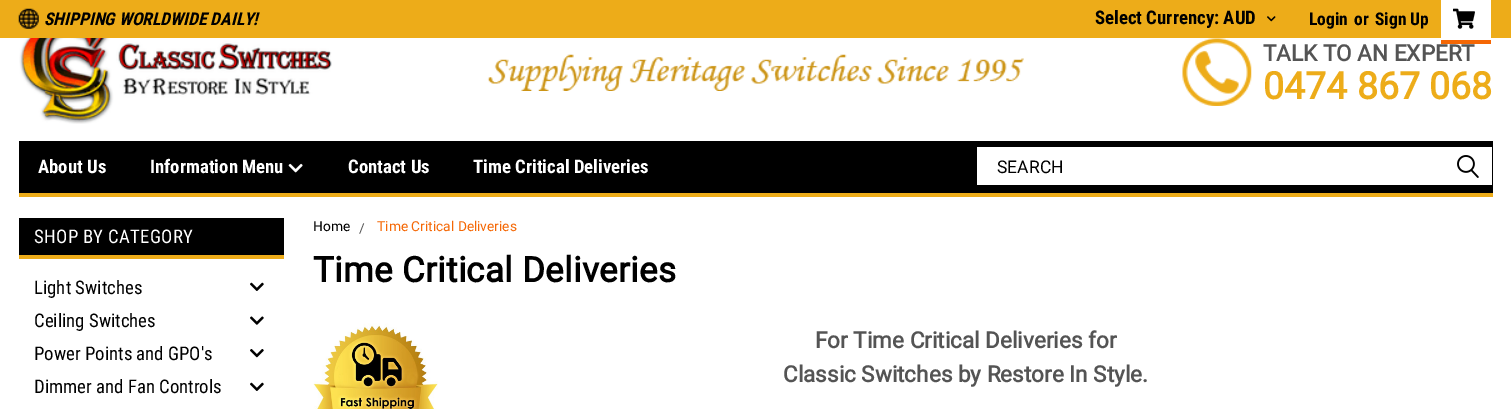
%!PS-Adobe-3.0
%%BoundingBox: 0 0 1511 409
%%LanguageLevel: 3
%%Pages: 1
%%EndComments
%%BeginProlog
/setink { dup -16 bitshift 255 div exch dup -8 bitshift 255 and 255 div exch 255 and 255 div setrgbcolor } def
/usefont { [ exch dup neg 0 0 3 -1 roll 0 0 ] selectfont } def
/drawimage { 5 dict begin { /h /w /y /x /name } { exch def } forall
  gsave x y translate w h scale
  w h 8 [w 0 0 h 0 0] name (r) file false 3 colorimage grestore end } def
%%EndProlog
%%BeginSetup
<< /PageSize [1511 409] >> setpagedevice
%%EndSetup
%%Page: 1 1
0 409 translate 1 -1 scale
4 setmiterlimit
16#FFFFFF setink
0 0 1511 409 rectfill
16#EDAC19 setink
0 0 1511 38 rectfill
(img1.raw) 18 8 21 21 drawimage
/RobotoCondensed-BoldItalic 17.5 usefont
16#000000 setink
44 25 moveto (SHIPPING WORLDWIDE DAILY!) show
/RobotoCondensed-Bold 18.75 usefont
1095 24 moveto (Select Currency: AUD) show
(img2.raw) 1267 16 9 6 drawimage
/RobotoCondensed-Bold 17.5 usefont
[
    [(Login) 1309 25]
    [(or) 1354 25]
    [(Sign Up) 1375 25]
] { aload pop moveto show } forall
16#FFFFFF setink
1441 0 50 38 rectfill
16#F56704 setink
1441 40 50 4 rectfill
(img3.raw) 1453 8 22 21 drawimage
(img4.raw) 487 54 537 37 drawimage
(img5.raw) 19 38 313 86 drawimage
(img6.raw) 1182 38 70 68 drawimage
/Roboto-Bold 22.5 usefont
16#545454 setink
1263 61 moveto (TALK TO AN EXPERT) show
/Roboto-Bold 37.5 usefont
16#EDAC19 setink
1263 99 moveto (0474 867 068) show
16#000000 setink
19 141 1474 52 rectfill
16#EDAC19 setink
19 193 1474 4 rectfill
/RobotoCondensed-Bold 18.75 usefont
16#FFFFFF setink
38 173 moveto (About Us) show
150 173 moveto (Information Menu) show
(img7.raw) 288 163 15 10 drawimage
348 173 moveto (Contact Us) show
473 173 moveto (Time Critical Deliveries) show
977 147 515 38 rectfill
/Roboto-Regular 17.5 usefont
16#000000 setink
997 173 moveto (SEARCH) show
(img8.raw) 1457 155 22 23 drawimage
19 218 265 37 rectfill
16#EDAC19 setink
19 255 265 4 rectfill
/RobotoCondensed-Regular 18.75 usefont
16#FFFFFF setink
34 243 moveto 0.3 0 (SHOP BY CATEGORY) ashow
16#000000 setink
34 294 moveto (Light Switches) show
(img9.raw) 250 282 14 9 drawimage
34 327 moveto (Ceiling Switches) show
(img10.raw) 250 316 14 9 drawimage
34 360 moveto (Power Points and GPO's) show
(img11.raw) 250 349 14 9 drawimage
34 393 moveto (Dimmer and Fan Controls) show
(img9.raw) 250 382 14 9 drawimage
/Roboto-Regular 13.75 usefont
313 231 moveto (Home) show
16#545454 setink
359 233 moveto (/) show
16#F56704 setink
377 231 moveto (Time Critical Deliveries) show
/Roboto-Bold 35 usefont
16#000000 setink
313 282 moveto 0.3 0 (Time Critical Deliveries) ashow
(img12.raw) 313 323 125 86 drawimage
/Roboto-Bold 22.5 usefont
16#545454 setink
815 348 moveto (For Time Critical Deliveries for) show
783 382 moveto (Classic Switches by Restore In Style.) show
showpage
%%EOF
